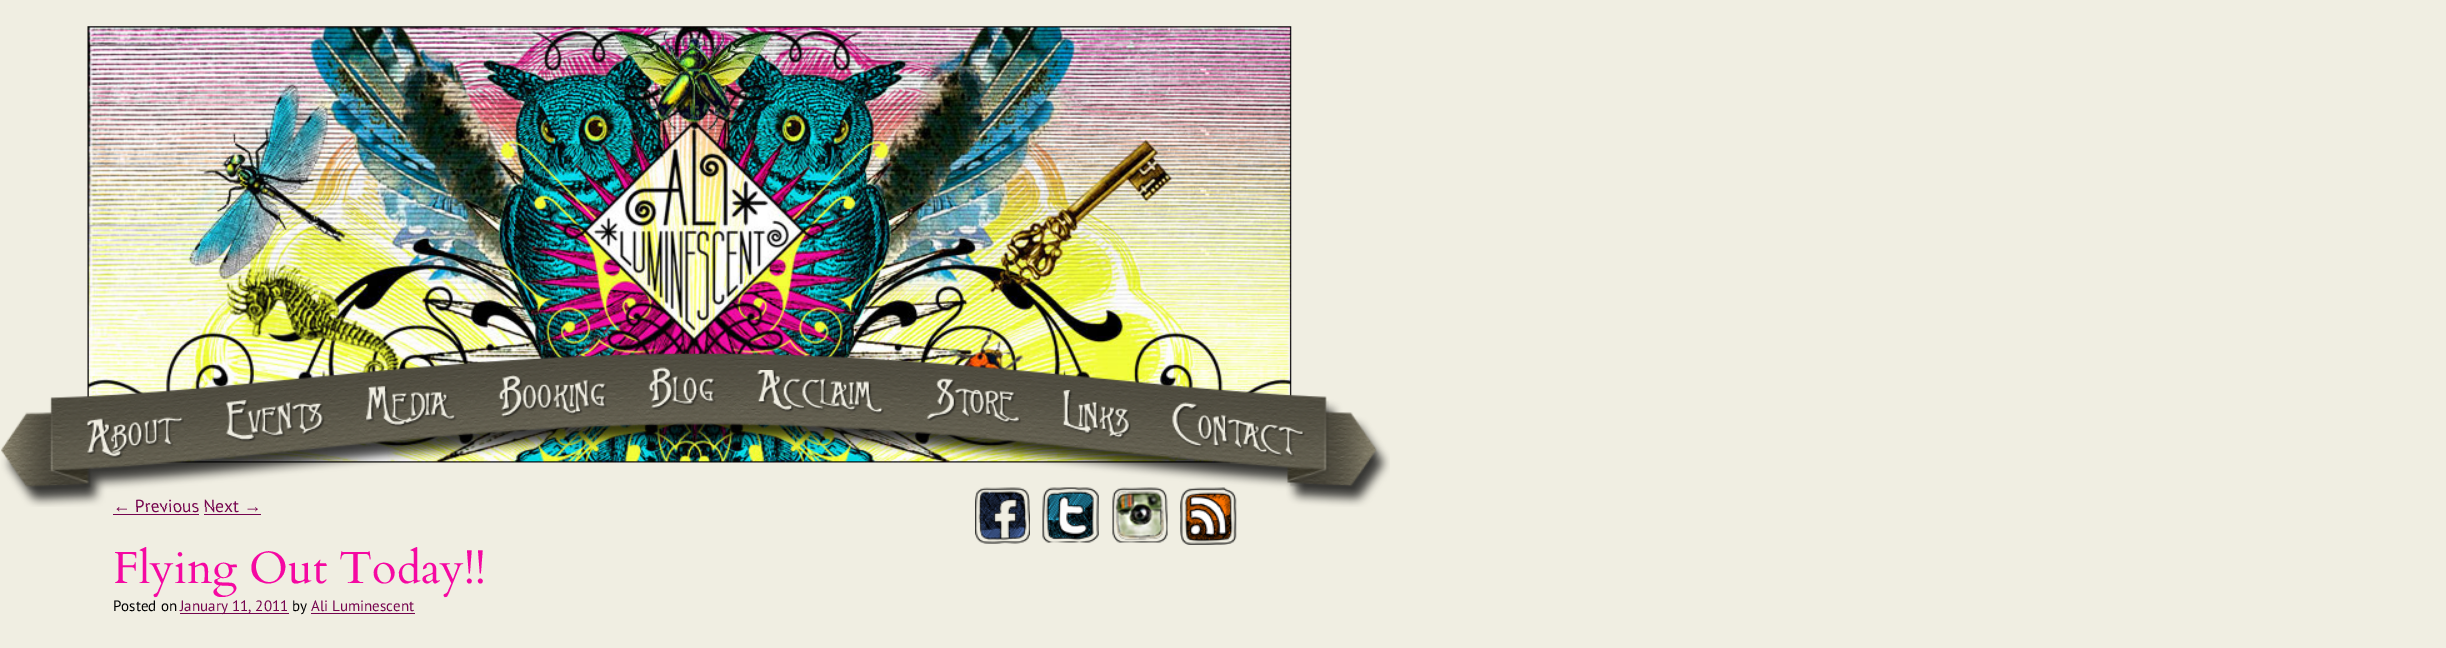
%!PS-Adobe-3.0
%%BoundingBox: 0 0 2446 648
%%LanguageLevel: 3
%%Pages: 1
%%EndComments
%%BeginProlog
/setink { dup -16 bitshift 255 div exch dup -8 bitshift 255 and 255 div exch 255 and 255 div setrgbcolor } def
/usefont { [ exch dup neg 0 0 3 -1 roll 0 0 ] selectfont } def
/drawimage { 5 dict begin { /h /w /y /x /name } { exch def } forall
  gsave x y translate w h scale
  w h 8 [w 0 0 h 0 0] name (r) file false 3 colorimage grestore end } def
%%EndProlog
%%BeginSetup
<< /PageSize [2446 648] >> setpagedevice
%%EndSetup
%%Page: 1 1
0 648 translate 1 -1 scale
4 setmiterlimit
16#F0EEE2 setink
0 0 2446 648 rectfill
(img1.raw) 87 26 1205 437 drawimage
(img12.raw) 975 487 55 57 drawimage
(img13.raw) 1042 487 57 56 drawimage
(img14.raw) 1112 487 56 56 drawimage
(img15.raw) 1180 487 57 58 drawimage
/PTSans-Regular 17.5 usefont
16#75044E setink
135 512 moveto (Previous Next) show
(img2.raw) 1 353 1389 154 drawimage
(img3.raw) 86 417 98 42 drawimage
(img4.raw) 226 400 99 42 drawimage
(img5.raw) 366 386 91 42 drawimage
(img6.raw) 498 375 109 44 drawimage
(img7.raw) 648 367 68 43 drawimage
(img8.raw) 757 370 127 44 drawimage
(img9.raw) 926 378 95 46 drawimage
(img10.raw) 1062 390 69 49 drawimage
(img11.raw) 1172 402 133 55 drawimage
/LiberationSans-Regular 17.5 usefont
113 512 moveto (←) show
113 514 86 1 rectfill
244 512 moveto (→) show
204 514 57 1 rectfill
/Cardo-Regular 45 usefont
16#F508A2 setink
113 583 moveto (Flying Out Today!!) show
/PTSans-Regular 15 usefont
16#000000 setink
113 611 moveto (Posted on) show
16#75044E setink
180 613 109 1 rectfill
180 611 moveto (January 11, 2011) show
16#000000 setink
292 611 moveto (by) show
16#75044E setink
311 613 104 1 rectfill
311 611 moveto (Ali Luminescent) show
showpage
%%EOF
